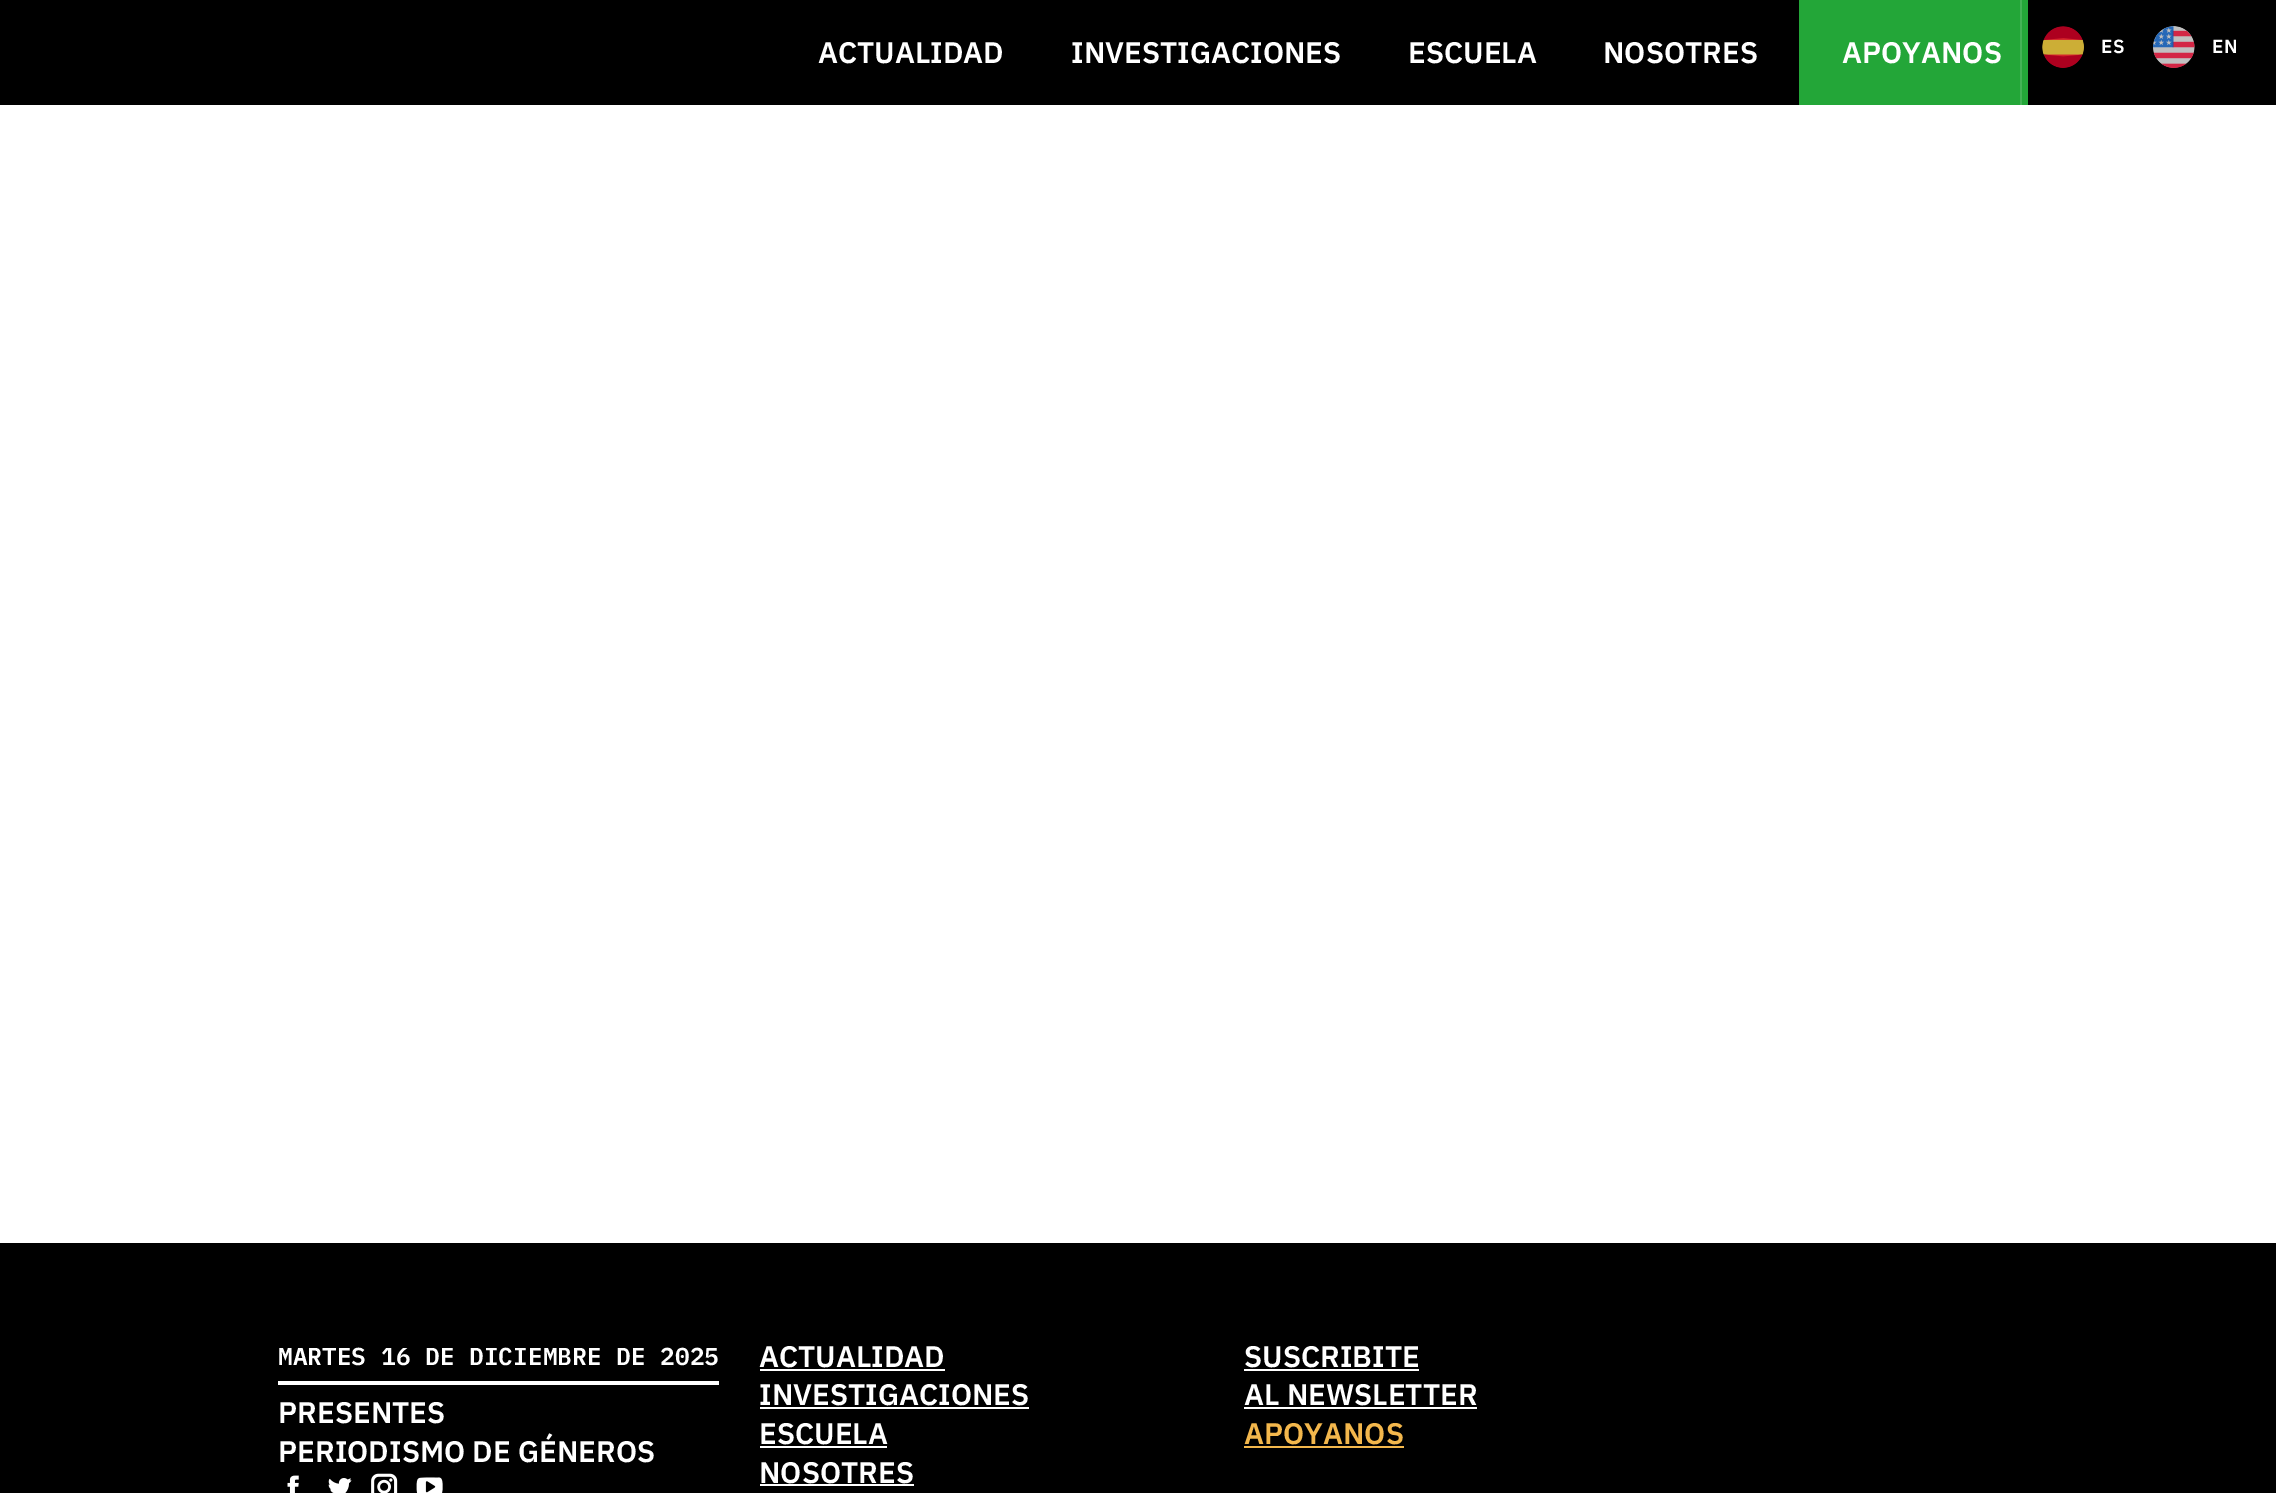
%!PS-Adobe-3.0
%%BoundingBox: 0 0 2276 1493
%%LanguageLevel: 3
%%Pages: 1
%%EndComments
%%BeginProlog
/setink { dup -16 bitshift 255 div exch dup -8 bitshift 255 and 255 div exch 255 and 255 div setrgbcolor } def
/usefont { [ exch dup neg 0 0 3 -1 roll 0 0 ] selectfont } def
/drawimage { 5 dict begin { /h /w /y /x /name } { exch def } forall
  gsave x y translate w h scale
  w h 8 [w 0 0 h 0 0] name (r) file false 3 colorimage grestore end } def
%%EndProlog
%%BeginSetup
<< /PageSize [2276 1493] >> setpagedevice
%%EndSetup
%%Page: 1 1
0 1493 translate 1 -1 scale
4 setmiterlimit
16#000000 setink
0 0 2276 1493 rectfill
/IBMPlexSans-SemiBold 29.75 usefont
16#FFFFFF setink
[
    [(ACTUALIDAD) 818 63]
    [(INVESTIGACIONES) 1071 63]
    [(ESCUELA) 1408 63]
    [(NOSOTRES) 1603 63]
] { aload pop moveto show } forall
16#23A638 setink
1799 0 229 105 rectfill
16#FFFFFF setink
1842 63 moveto (APOYANOS) show
16#44B356 setink
2020 0 2 105 rectfill
(img1.raw) 2042 26 42 42 drawimage
/IBMPlexSans-SemiBold 19 usefont
16#FFFFFF setink
2101 53 moveto 1 0 (ES) ashow
(img2.raw) 2153 26 42 42 drawimage
2212 53 moveto 1 0 (EN) ashow
0 105 2276 1138 rectfill
278 1381 441 4 rectfill
/IBMPlexMono-SemiBold 24.5 usefont
278 1365 moveto (MARTES 16 DE DICIEMBRE DE 2025) show
/IBMPlexSans-SemiBold 29.75 usefont
278 1423 moveto (PRESENTES) show
278 1462 moveto (PERIODISMO DE GÉNEROS) show
(img3.raw) 287 1475 12 18 drawimage
(img4.raw) 328 1478 24 15 drawimage
(img5.raw) 371 1473 27 20 drawimage
(img6.raw) 416 1477 27 16 drawimage
759 1367 moveto (ACTUALIDAD) show
760 1369 185 2 rectfill
759 1405 moveto (INVESTIGACIONES) show
760 1407 269 2 rectfill
759 1444 moveto (ESCUELA) show
760 1446 127 2 rectfill
759 1483 moveto (NOSOTRES) show
760 1484 154 2 rectfill
1244 1367 moveto (SUSCRIBITE) show
1244 1369 175 2 rectfill
1244 1405 moveto (AL NEWSLETTER) show
1244 1407 233 2 rectfill
16#F3B74C setink
1244 1444 moveto (APOYANOS) show
1244 1446 160 2 rectfill
showpage
%%EOF
